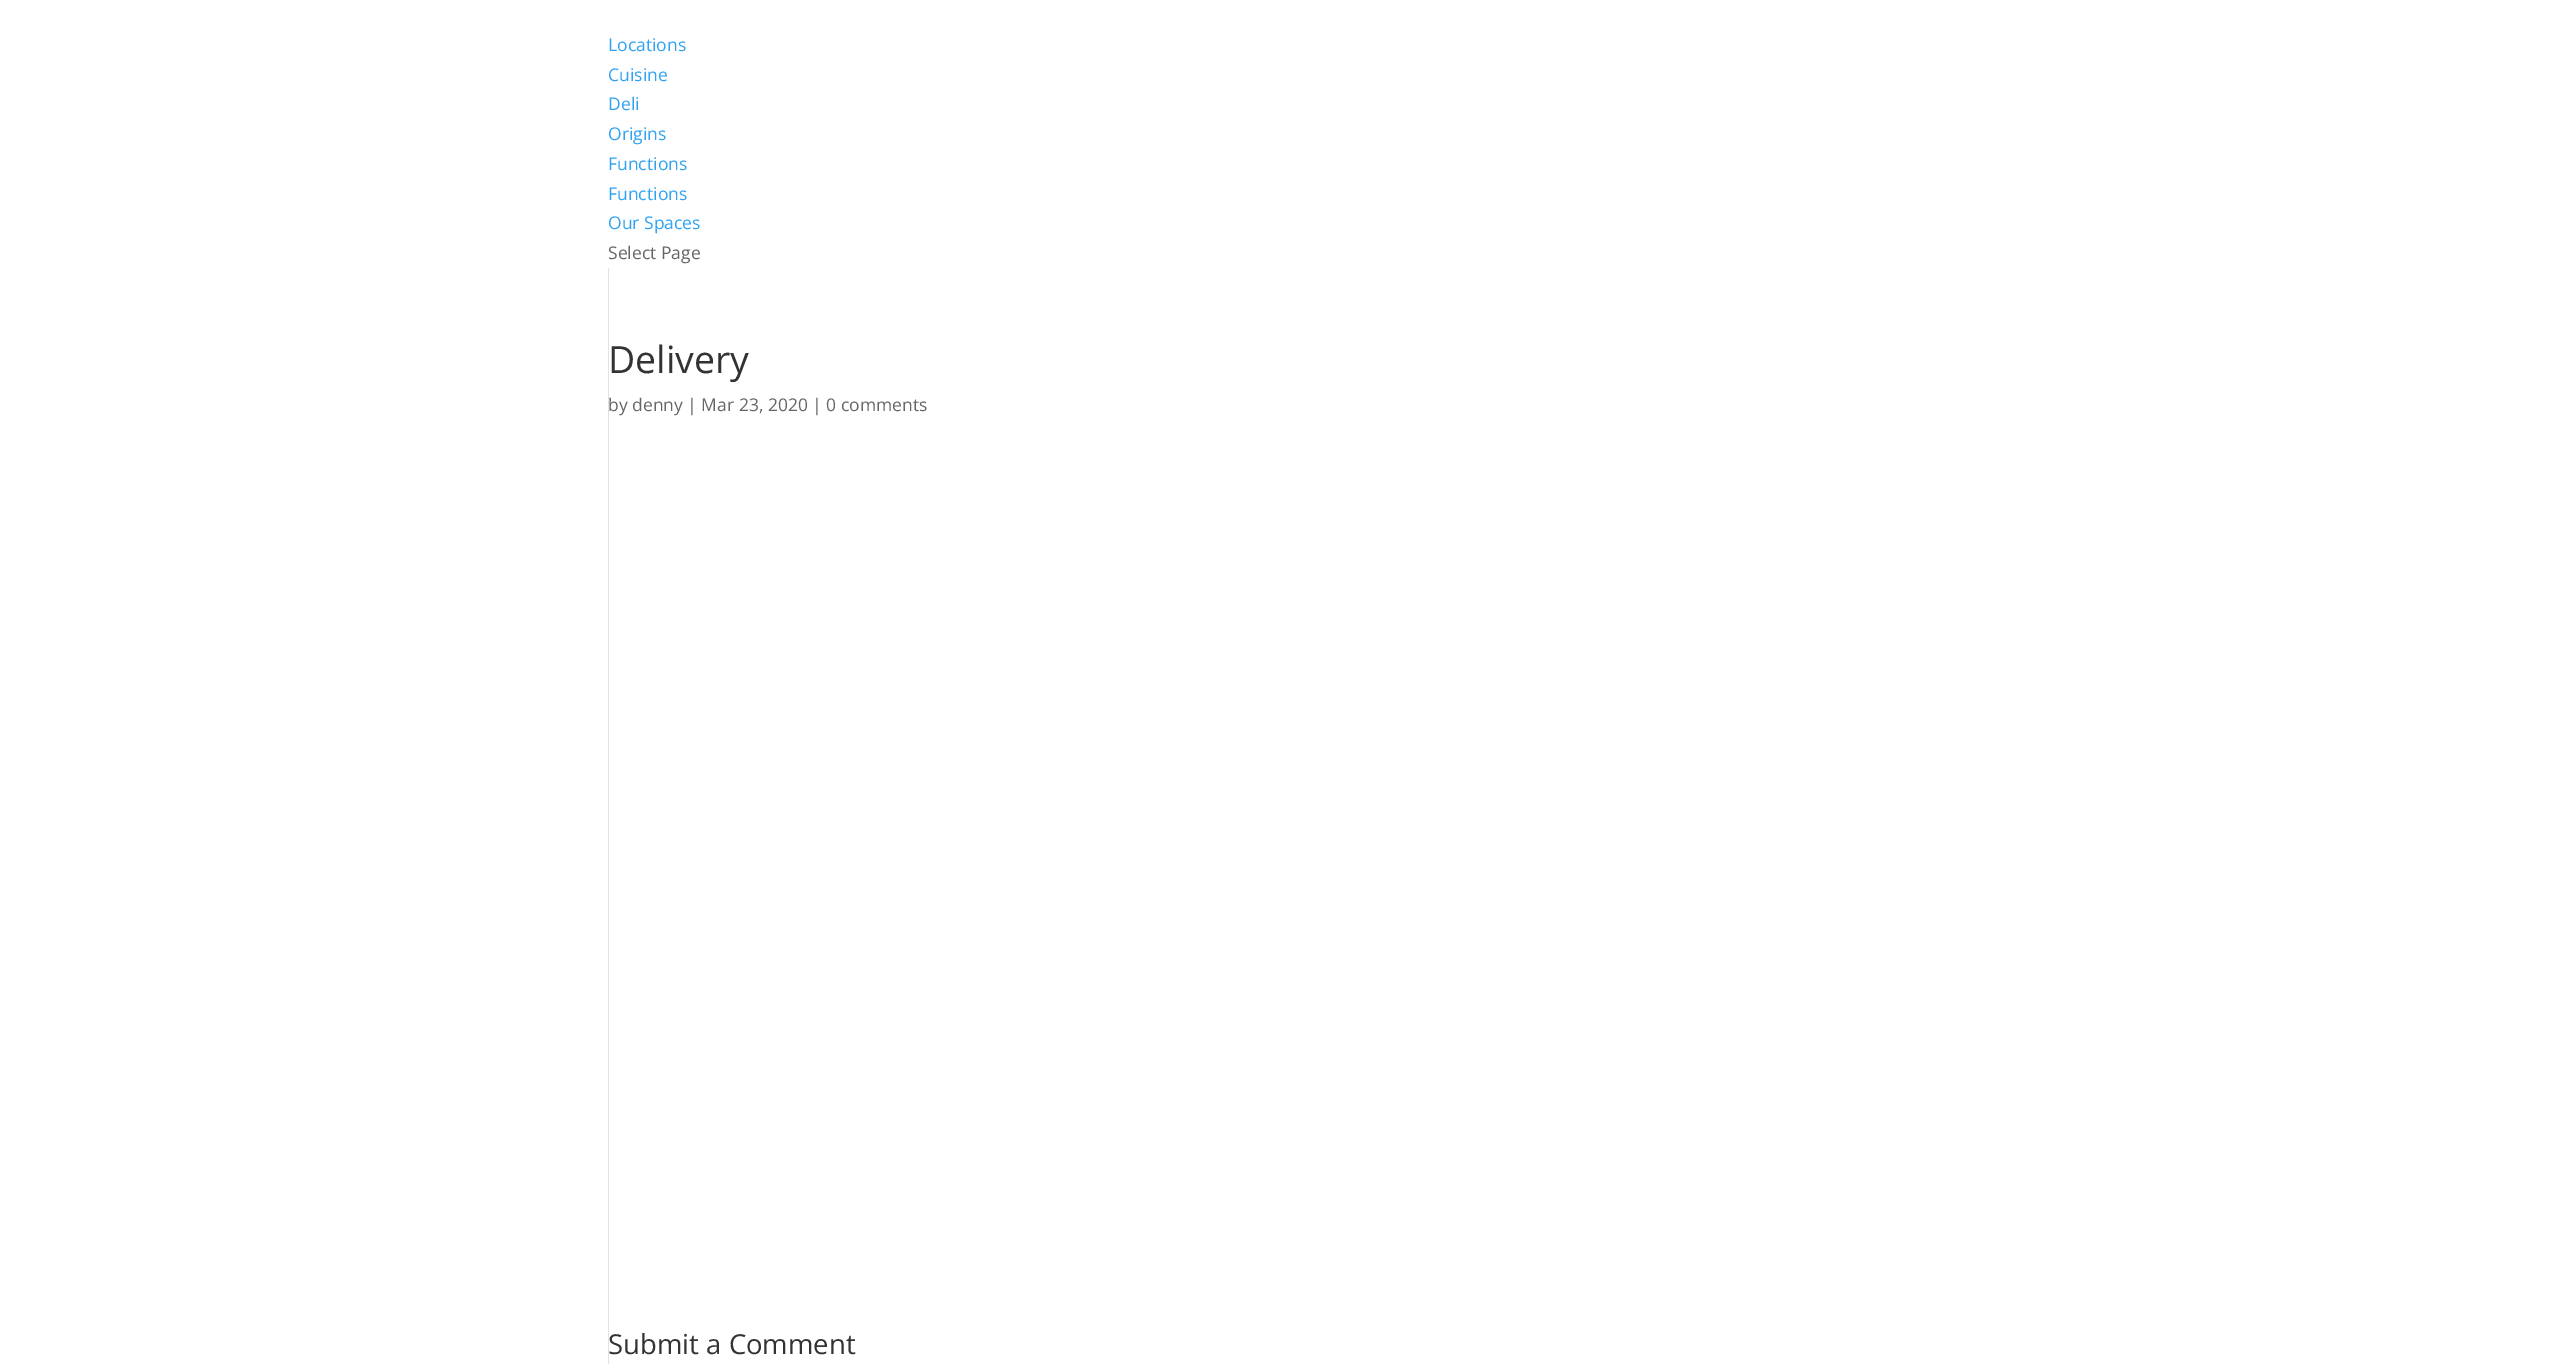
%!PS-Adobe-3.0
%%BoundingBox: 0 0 2564 1364
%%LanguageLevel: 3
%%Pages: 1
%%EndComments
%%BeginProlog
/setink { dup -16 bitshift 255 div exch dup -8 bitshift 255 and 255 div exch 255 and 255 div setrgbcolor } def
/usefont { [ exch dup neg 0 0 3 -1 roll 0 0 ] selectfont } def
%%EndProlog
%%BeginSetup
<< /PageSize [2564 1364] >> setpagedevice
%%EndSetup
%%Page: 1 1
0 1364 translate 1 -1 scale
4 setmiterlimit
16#FFFFFF setink
0 0 2564 1364 rectfill
/OpenSans-Regular 17.5 usefont
16#2EA3F2 setink
[
    [(Locations) 608 51]
    [(Cuisine) 608 81]
    [(Deli) 608 110]
    [(Origins) 608 140]
    [(Functions) 608 170]
    [(Functions) 608 200]
    [(Our Spaces) 608 229]
] { aload pop moveto show } forall
16#666666 setink
608 259 moveto (Select Page) show
608 411 moveto (by denny | Mar 23, 2020 | 0 comments) show
/OpenSans-Regular 27.5 usefont
16#333333 setink
608 1354 moveto (Submit a Comment) show
16#E2E2E2 setink
608 268 1 1096 rectfill
/OpenSans-Regular 37.5 usefont
16#333333 setink
608 373 moveto (Delivery) show
showpage
%%EOF
